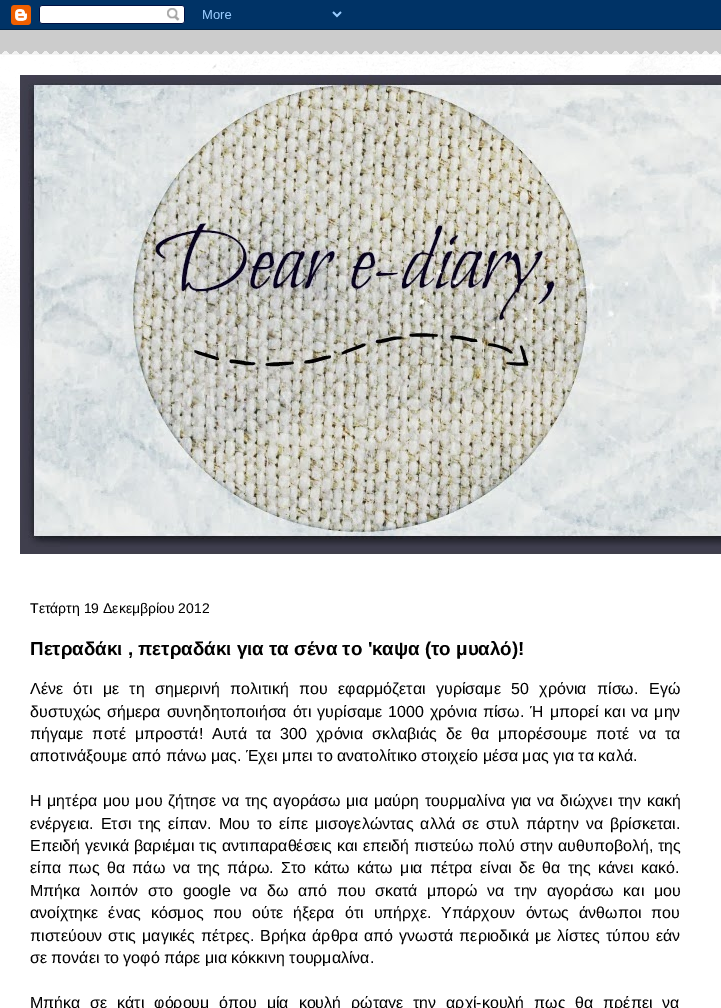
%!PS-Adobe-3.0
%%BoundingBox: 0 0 721 1008
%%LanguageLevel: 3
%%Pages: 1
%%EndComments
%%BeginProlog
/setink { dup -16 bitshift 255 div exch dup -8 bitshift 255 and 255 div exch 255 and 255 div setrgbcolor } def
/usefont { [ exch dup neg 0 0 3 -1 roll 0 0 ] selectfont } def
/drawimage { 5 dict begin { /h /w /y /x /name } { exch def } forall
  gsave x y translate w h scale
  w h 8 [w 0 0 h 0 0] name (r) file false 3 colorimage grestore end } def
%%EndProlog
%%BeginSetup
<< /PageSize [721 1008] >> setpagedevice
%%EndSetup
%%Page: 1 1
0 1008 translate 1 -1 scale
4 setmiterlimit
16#CCCCCC setink
0 0 721 1008 rectfill
(img1.raw) 0 0 721 30 drawimage
(img2.raw) 0 51 721 4 drawimage
16#FFFFFF setink
0 55 721 953 rectfill
(img3.raw) 0 55 721 298 drawimage
(img4.raw) 20 75 701 479 drawimage
/LiberationSans-Regular 14 usefont
16#000000 setink
30 613 moveto (Τετάρτη 19 Δεκεμβρίου 2012) show
/LiberationSans-Bold 18.75 usefont
30 655 moveto (Πετραδάκι , πετραδάκι για τα σένα το 'καψα \(το μυαλό\)!) show
/LiberationSans-Regular 16 usefont
30 694 moveto 6 0 32 (Λένε ότι με τη σημερινή πολιτική που εφαρμόζεται γυρίσαμε 50 χρόνια πίσω. Εγώ) widthshow
30 717 moveto 1.5 0 32 (δυστυχώς σήμερα συνηδητοποιήσα ότι γυρίσαμε 1000 χρόνια πίσω. Ή μπορεί και να μην) widthshow
30 739 moveto 4.5 0 32 (πήγαμε ποτέ μπροστά! Αυτά τα 300 χρόνια σκλαβιάς δε θα μπορέσουμε ποτέ να τα) widthshow
30 761 moveto (αποτινάξουμε από πάνω μας. Έχει μπει το ανατολίτικο στοιχείο μέσα μας για τα καλά.) show
30 806 moveto 1.25 0 32 (Η μητέρα μου μου ζήτησε να της αγοράσω μια μαύρη τουρμαλίνα για να διώχνει την κακή) widthshow
30 829 moveto 2.6 0 32 (ενέργεια. Ετσι της είπαν. Μου το είπε μισογελώντας αλλά σε στυλ πάρτην να βρίσκεται.) widthshow
30 851 moveto 0.5 0 32 (Επειδή γενικά βαριέμαι τις αντιπαραθέσεις και επειδή πιστεύω πολύ στην αυθυποβολή, της) widthshow
30 873 moveto 2.9 0 32 (είπα πως θα πάω να της πάρω. Στο κάτω κάτω μια πέτρα είναι δε θα της κάνει κακό.) widthshow
30 896 moveto 5.1 0 32 (Μπήκα λοιπόν στο google να δω από που σκατά μπορώ να την αγοράσω και μου) widthshow
30 918 moveto 5.6 0 32 (ανοίχτηκε ένας κόσμος που ούτε ήξερα ότι υπήρχε. Υπάρχουν όντως άνθωποι που) widthshow
30 941 moveto 1.7 0 32 (πιστεύουν στις μαγικές πέτρες. Βρήκα άρθρα από γνωστά περιοδικά με λίστες τύπου εάν) widthshow
30 963 moveto (σε πονάει το γοφό πάρε μια κόκκινη τουρμαλίνα.) show
30 1008 moveto 5.4 0 32 (Μπήκα σε κάτι φόρουμ όπου μία κουλή ρώταγε την αρχί-κουλή πως θα πρέπει να) widthshow
showpage
%%EOF
